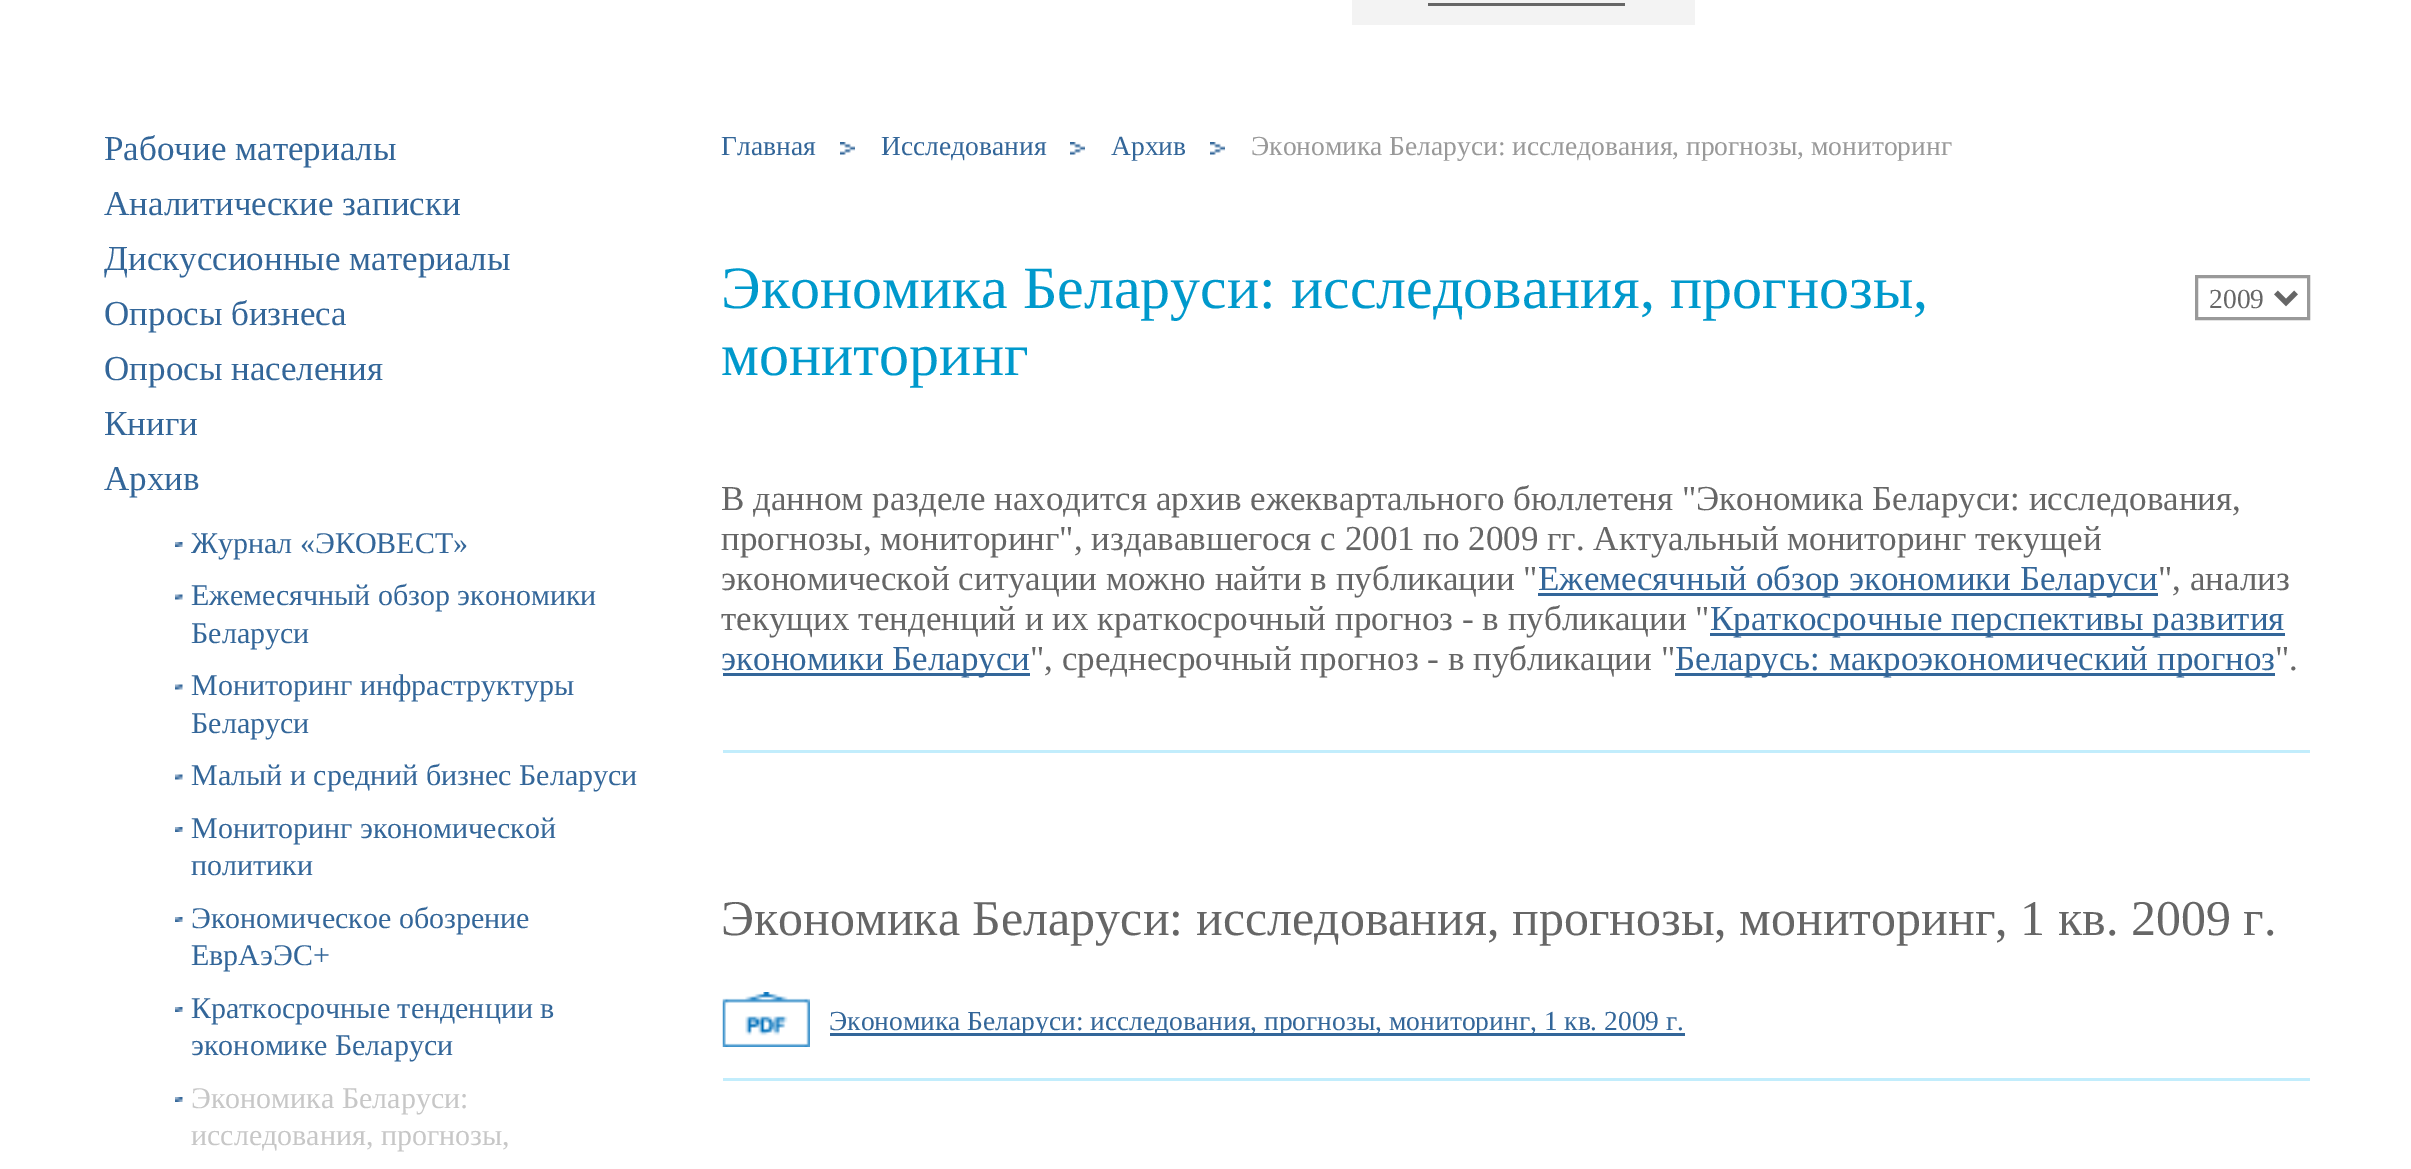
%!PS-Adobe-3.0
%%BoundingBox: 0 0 2411 1169
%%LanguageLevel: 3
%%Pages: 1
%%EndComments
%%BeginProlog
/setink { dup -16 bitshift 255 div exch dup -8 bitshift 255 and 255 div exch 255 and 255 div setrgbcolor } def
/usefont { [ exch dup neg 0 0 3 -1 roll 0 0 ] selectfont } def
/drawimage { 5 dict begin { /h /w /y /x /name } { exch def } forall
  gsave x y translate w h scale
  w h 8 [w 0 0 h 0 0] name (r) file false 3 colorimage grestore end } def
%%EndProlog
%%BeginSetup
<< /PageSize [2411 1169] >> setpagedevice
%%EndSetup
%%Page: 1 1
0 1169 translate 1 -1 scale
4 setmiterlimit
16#FFFFFF setink
0 0 2411 1169 rectfill
16#F3F3F3 setink
1352 0 343 25 rectfill
16#666666 setink
1428 3 197 3 rectfill
/LiberationSerif-Regular 35 usefont
16#336699 setink
[
    [(Рабочие материалы) 104 160]
    [(Аналитические записки) 104 215]
    [(Дискуссионные материалы) 104 270]
    [(Опросы бизнеса) 104 325]
    [(Опросы населения) 104 380]
    [(Книги) 104 435]
    [(Архив) 104 490]
] { aload pop moveto show } forall
(img1.raw) 175 542 8 5 drawimage
/LiberationSerif-Regular 30 usefont
191 553 moveto (Журнал «ЭКОВЕСТ») show
(img2.raw) 175 594 8 6 drawimage
191 605 moveto (Ежемесячный обзор экономики) show
191 643 moveto (Беларуси) show
(img2.raw) 175 684 8 6 drawimage
191 695 moveto (Мониторинг инфраструктуры) show
191 733 moveto (Беларуси) show
(img2.raw) 175 774 8 6 drawimage
191 785 moveto (Малый и средний бизнес Беларуси) show
(img3.raw) 175 827 8 5 drawimage
191 838 moveto (Мониторинг экономической) show
191 875 moveto (политики) show
(img3.raw) 175 917 8 5 drawimage
191 928 moveto (Экономическое обозрение) show
191 965 moveto (ЕврАэЭС+) show
(img3.raw) 175 1007 8 5 drawimage
191 1018 moveto (Краткосрочные тенденции в) show
191 1055 moveto (экономике Беларуси) show
(img3.raw) 175 1097 8 5 drawimage
16#C7C7C7 setink
191 1108 moveto (Экономика Беларуси:) show
191 1145 moveto (исследования, прогнозы,) show
/LiberationSerif-Regular 27.5 usefont
16#336699 setink
721 155 moveto (Главная) show
(img4.raw) 840 142 15 13 drawimage
881 155 moveto (Исследования) show
(img4.raw) 1070 142 15 13 drawimage
1111 155 moveto (Архив) show
(img4.raw) 1210 142 15 13 drawimage
16#999999 setink
1251 155 moveto (Экономика Беларуси: исследования, прогнозы, мониторинг) show
/LiberationSerif-Regular 60 usefont
16#0099CC setink
721 308 moveto (Экономика Беларуси: исследования, прогнозы,) show
721 375 moveto (мониторинг) show
16#999999 setink
3 setlinewidth
2196.5 276.5 112 42 rectstroke
16#666666 setink
5 setlinewidth
2276 292.5 moveto 2286 302.5 lineto 2296 292.5 lineto stroke
/LiberationSerif-Regular 27.5 usefont
2209 308 moveto (2009) show
16#C2EDFC setink
723 750 1587 3 rectfill
/LiberationSerif-Regular 35 usefont
16#666666 setink
[
    [(В данном разделе находится архив ежеквартального бюллетеня "Экономика Беларуси: исследования,) 721 510]
    [(прогнозы, мониторинг", издававшегося с 2001 по 2009 гг. Актуальный мониторинг текущей) 721 550]
    [(экономической ситуации можно найти в публикации ") 721 590]
] { aload pop moveto show } forall
16#336699 setink
1538 593 620 3 rectfill
1538 590 moveto (Ежемесячный обзор экономики Беларуси) show
16#666666 setink
2158 590 moveto (", анализ) show
721 630 moveto (текущих тенденций и их краткосрочный прогноз - в публикации ") show
16#336699 setink
1710 633 575 3 rectfill
1710 630 moveto (Краткосрочные перспективы развития) show
723 673 307 3 rectfill
721 670 moveto (экономики Беларуси) show
16#666666 setink
1030 670 moveto (", среднесрочный прогноз - в публикации ") show
16#336699 setink
1675 673 600 3 rectfill
1675 670 moveto (Беларусь: макроэкономический прогноз) show
16#666666 setink
2275 670 moveto (".) show
16#C2EDFC setink
723 1078 1587 3 rectfill
/LiberationSerif-Regular 50 usefont
16#666666 setink
721 935 moveto (Экономика Беларуси: исследования, прогнозы, мониторинг, 1 кв. 2009 г.) show
(img5.raw) 722 992 88 55 drawimage
16#336699 setink
830 1033 855 3 rectfill
/LiberationSerif-Regular 27.5 usefont
829 1030 moveto (Экономика Беларуси: исследования, прогнозы, мониторинг, 1 кв. 2009 г.) show
showpage
%%EOF
